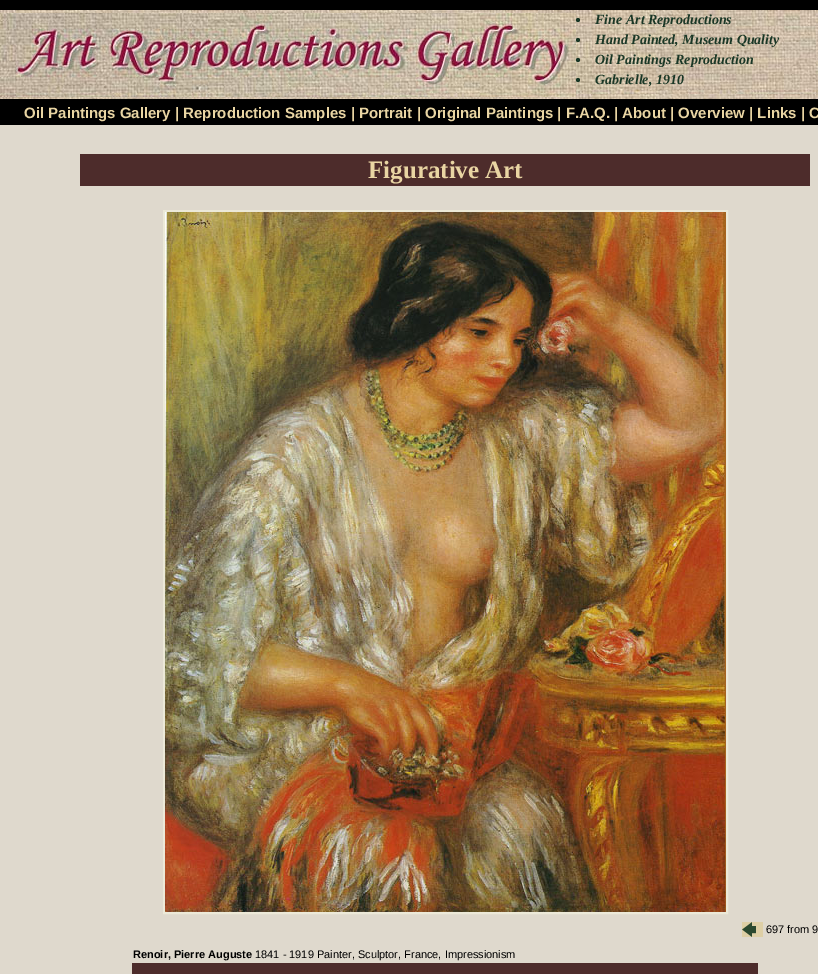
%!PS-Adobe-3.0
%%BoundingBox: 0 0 818 974
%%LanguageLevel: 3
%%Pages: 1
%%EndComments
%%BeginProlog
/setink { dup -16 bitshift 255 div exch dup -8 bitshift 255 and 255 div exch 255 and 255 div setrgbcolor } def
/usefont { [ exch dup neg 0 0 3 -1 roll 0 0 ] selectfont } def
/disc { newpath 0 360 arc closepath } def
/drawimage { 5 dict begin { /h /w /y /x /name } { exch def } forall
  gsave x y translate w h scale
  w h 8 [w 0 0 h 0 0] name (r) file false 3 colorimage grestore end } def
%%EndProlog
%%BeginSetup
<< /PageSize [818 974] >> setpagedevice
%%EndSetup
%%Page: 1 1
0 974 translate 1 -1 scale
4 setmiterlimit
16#000000 setink
0 0 818 974 rectfill
(img1.raw) 0 10 576 89 drawimage
(img2.raw) 0 13 576 84 drawimage
(img3.raw) 576 10 242 89 drawimage
16#1A3726 setink
578 20 2 disc fill
/LiberationSerif-BoldItalic 14 usefont
595 24 moveto (Fine Art Reproductions) show
578 40 2 disc fill
595 44 moveto (Hand Painted, Museum Quality) show
578 60 2 disc fill
595 64 moveto (Oil Paintings Reproduction) show
578 80 2 disc fill
595 84 moveto (Gabrielle, 1910) show
/LiberationSans-Bold 15 usefont
16#E9D5A3 setink
24 118 moveto (Oil Paintings Gallery | Reproduction Samples | Portrait | Original Paintings | F.A.Q. | About | Overview | Links | C) show
16#DFD9CD setink
0 125 818 849 rectfill
16#4D2C2B setink
80 154 730 32 rectfill
/LiberationSerif-Bold 25 usefont
16#E9D5A3 setink
368 178 moveto (Figurative Art) show
16#ECE9D8 setink
2 setlinewidth
164 211 563 702 rectstroke
(img4.raw) 165 212 561 700 drawimage
(img5.raw) 742 922 21 15 drawimage
/LiberationSans-Regular 11 usefont
16#000000 setink
766 933 moveto (697 from 9) show
/LiberationSans-Bold 11 usefont
133 958 moveto (Renoir, Pierre Auguste) show
/LiberationSans-Regular 11 usefont
255 958 moveto (1841 - 1919 Painter, Sculptor, France, Impressionism) show
16#4D2C2B setink
132 963 626 11 rectfill
showpage
%%EOF
